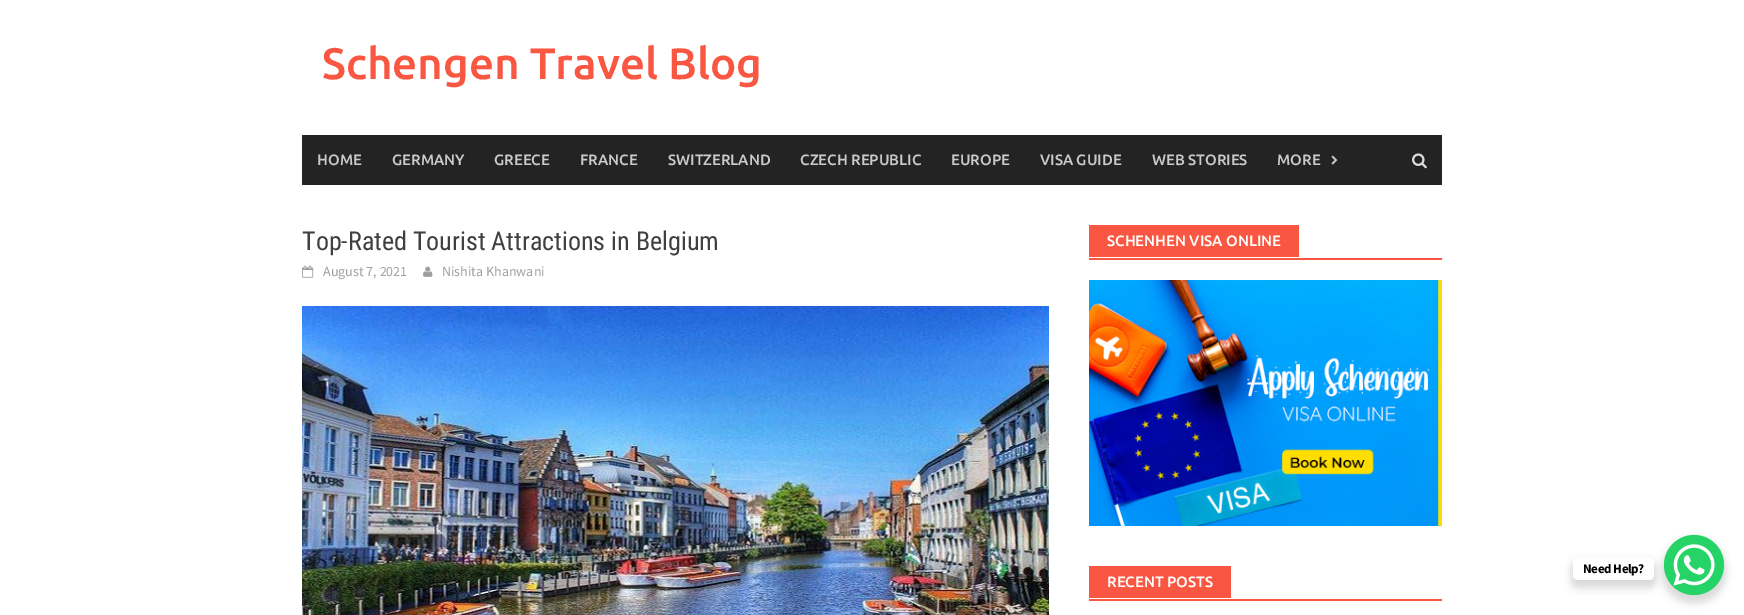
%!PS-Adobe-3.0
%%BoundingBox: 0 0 1744 615
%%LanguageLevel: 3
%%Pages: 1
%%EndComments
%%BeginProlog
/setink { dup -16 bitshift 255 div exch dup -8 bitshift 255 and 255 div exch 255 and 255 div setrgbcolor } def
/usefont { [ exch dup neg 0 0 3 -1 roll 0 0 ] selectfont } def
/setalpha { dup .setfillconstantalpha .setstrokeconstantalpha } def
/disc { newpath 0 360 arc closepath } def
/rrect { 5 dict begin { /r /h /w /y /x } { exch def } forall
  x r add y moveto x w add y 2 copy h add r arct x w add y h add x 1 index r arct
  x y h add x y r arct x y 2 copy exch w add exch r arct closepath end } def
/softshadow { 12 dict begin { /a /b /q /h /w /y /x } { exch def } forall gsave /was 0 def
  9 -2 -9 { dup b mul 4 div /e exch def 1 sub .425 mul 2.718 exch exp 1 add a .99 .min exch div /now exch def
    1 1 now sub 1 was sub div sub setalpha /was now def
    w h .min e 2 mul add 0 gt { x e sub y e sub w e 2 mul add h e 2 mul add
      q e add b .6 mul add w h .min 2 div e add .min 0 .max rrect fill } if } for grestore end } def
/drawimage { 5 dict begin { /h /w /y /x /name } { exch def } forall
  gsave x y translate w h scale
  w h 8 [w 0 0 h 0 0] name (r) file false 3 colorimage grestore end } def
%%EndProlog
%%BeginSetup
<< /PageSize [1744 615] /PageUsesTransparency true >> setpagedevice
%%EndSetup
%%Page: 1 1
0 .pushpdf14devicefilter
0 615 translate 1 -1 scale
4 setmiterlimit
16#FFFFFF setink
0 0 1744 615 rectfill
/Ubuntu-Medium 44 usefont
16#FA5742 setink
322 79 moveto (Schengen Travel Blog) show
16#232323 setink
302 135 1140 50 rectfill
/Ubuntu-Medium 15 usefont
16#CACACA setink
[
    [(HOME) 317 165]
    [(GERMANY) 392 165]
    [(GREECE) 494 165]
    [(FRANCE) 580 165]
    [(SWITZERLAND) 668 165]
    [(CZECH REPUBLIC) 800 165]
    [(EUROPE) 951 165]
    [(VISA GUIDE) 1040 165]
    [(WEB STORIES) 1152 165]
    [(MORE) 1277 165]
] { aload pop moveto show } forall
(img1.raw) 1331 155 7 10 drawimage
(img2.raw) 1412 153 15 16 drawimage
/RobotoCondensed-Regular 26 usefont
16#404040 setink
302 250 moveto (Top-Rated Tourist Attractions in Belgium) show
(img3.raw) 302 265 12 13 drawimage
/SourceSansPro-Regular 14 usefont
16#9F9F9F setink
323 276 moveto (August 7, 2021) show
(img4.raw) 423 266 10 11 drawimage
442 276 moveto (Nishita Khanwani) show
(img5.raw) 302 306 747 309 drawimage
16#FA5742 setink
1089 258 353 2 rectfill
1089 225 210 32 rectfill
/Ubuntu-Medium 15 usefont
16#FFFFFF setink
1107 246 moveto (SCHENHEN VISA ONLINE) show
(img6.raw) 1089 280 353 246 drawimage
16#FA5742 setink
1089 599 353 2 rectfill
1089 566 142 32 rectfill
16#FFFFFF setink
1107 587 moveto (RECENT POSTS) show
16#000000 setink
1662 539 64 64 32 4 0.15 softshadow
16#25D366 setink
1694 565 30 disc fill
16#000000 setink
1571 561 85 27 7 4 0.15 softshadow
16#FFFFFF setink
1573 557 81 23 5 rrect fill
/SourceSansPro-Bold 13 usefont
16#000000 setink
1583 573 moveto -0.4 0 (Need Help?) ashow
(img7.raw) 1673 544 42 42 drawimage
.poppdf14devicefilter showpage
%%EOF
